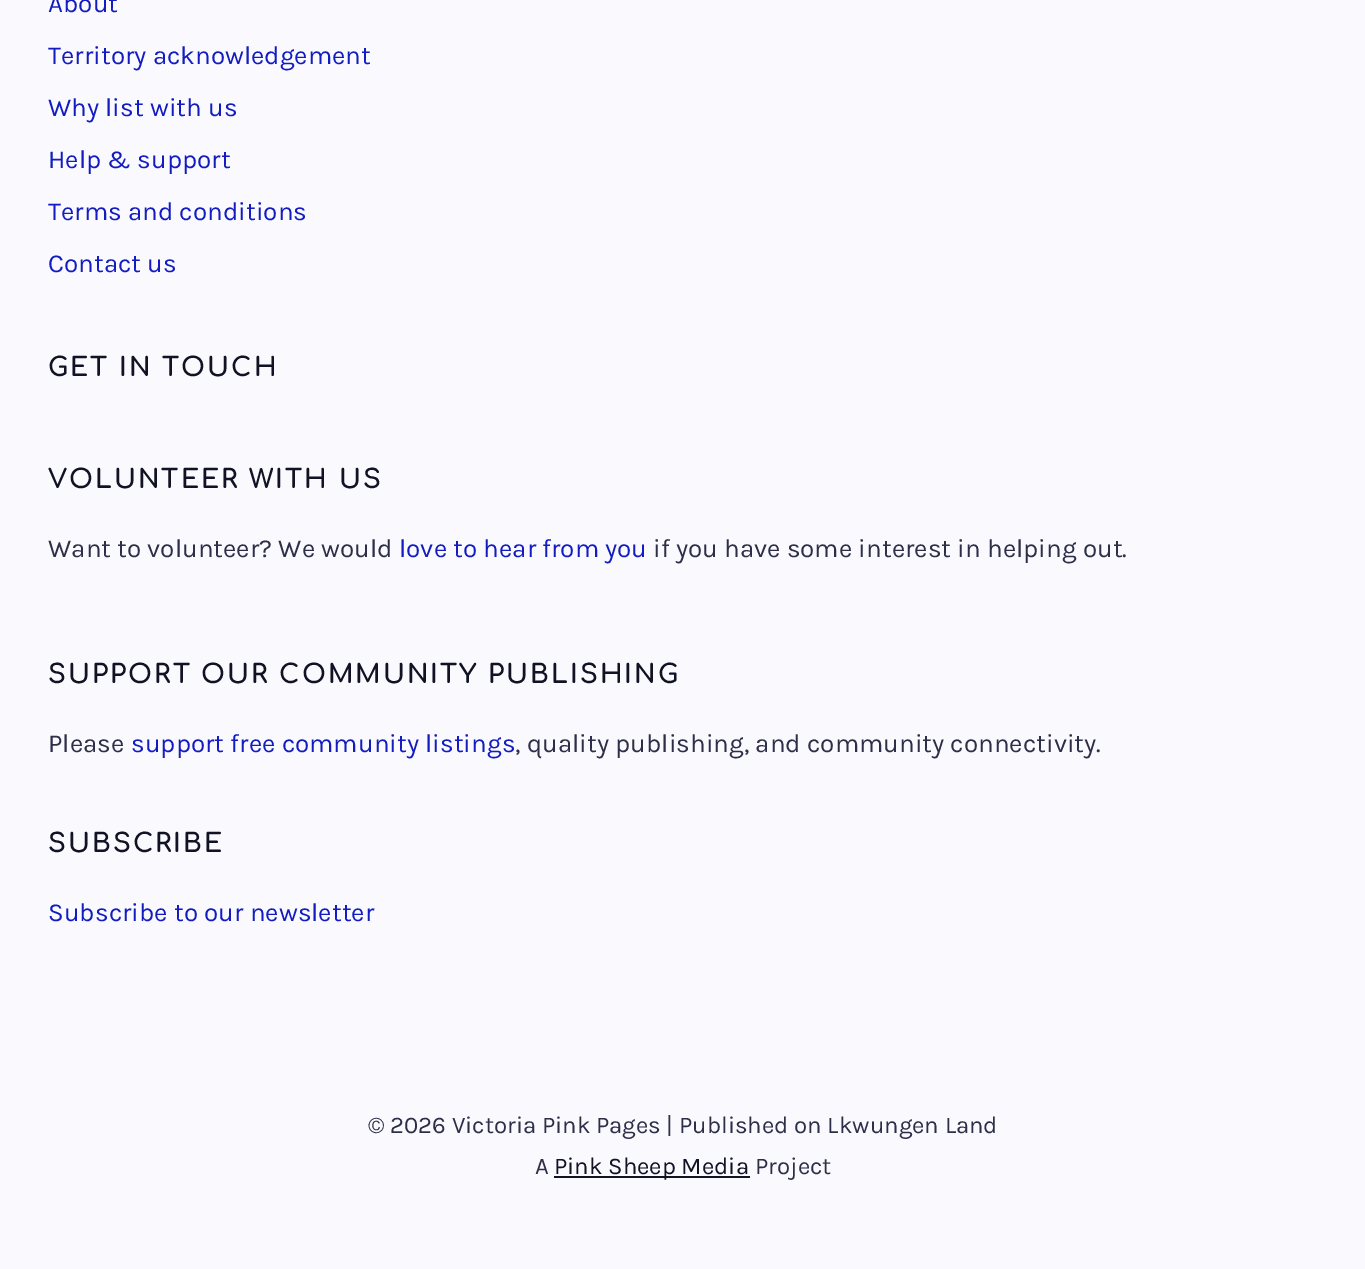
%!PS-Adobe-3.0
%%BoundingBox: 0 0 1365 1269
%%LanguageLevel: 3
%%Pages: 1
%%EndComments
%%BeginProlog
/setink { dup -16 bitshift 255 div exch dup -8 bitshift 255 and 255 div exch 255 and 255 div setrgbcolor } def
/usefont { [ exch dup neg 0 0 3 -1 roll 0 0 ] selectfont } def
%%EndProlog
%%BeginSetup
<< /PageSize [1365 1269] >> setpagedevice
%%EndSetup
%%Page: 1 1
0 1269 translate 1 -1 scale
4 setmiterlimit
16#FAFAFE setink
0 0 1365 1269 rectfill
/Karla-Regular 26 usefont
16#131CC0 setink
[
    [(About) 48 12]
    [(Territory acknowledgement) 48 64]
    [(Why list with us) 48 116]
    [(Help & support) 48 168]
    [(Terms and conditions) 48 220]
    [(Contact us) 48 272]
] { aload pop moveto show } forall
/Comfortaa-Bold 26 usefont
16#111325 setink
48 376 moveto 2 0 (GET IN TOUCH) ashow
48 488 moveto 2 0 (VOLUNTEER WITH US) ashow
/Karla-Regular 26 usefont
16#2D2E48 setink
48 557 moveto (Want to volunteer? We would) show
16#131CC0 setink
399 557 moveto (love to hear from you) show
16#2D2E48 setink
653 557 moveto (if you have some interest in helping out.) show
/Comfortaa-Bold 26 usefont
16#111325 setink
48 683 moveto 2 0 (SUPPORT OUR COMMUNITY PUBLISHING) ashow
/Karla-Regular 26 usefont
16#2D2E48 setink
48 752 moveto (Please) show
16#131CC0 setink
131 752 moveto (support free community listings) show
16#2D2E48 setink
515 752 moveto (, quality publishing, and community connectivity.) show
/Comfortaa-Bold 26 usefont
16#111325 setink
48 852 moveto 2 0 (SUBSCRIBE) ashow
/Karla-Regular 26 usefont
16#131CC0 setink
48 921 moveto (Subscribe to our newsletter) show
/Karla-Regular 24 usefont
16#2D2E48 setink
368 1133 moveto (© 2026 Victoria Pink Pages | Published on Lkwungen Land) show
535 1174 moveto (A) show
16#111325 setink
554 1176 196 2 rectfill
554 1174 moveto (Pink Sheep Media) show
16#2D2E48 setink
755 1174 moveto (Project) show
showpage
%%EOF
